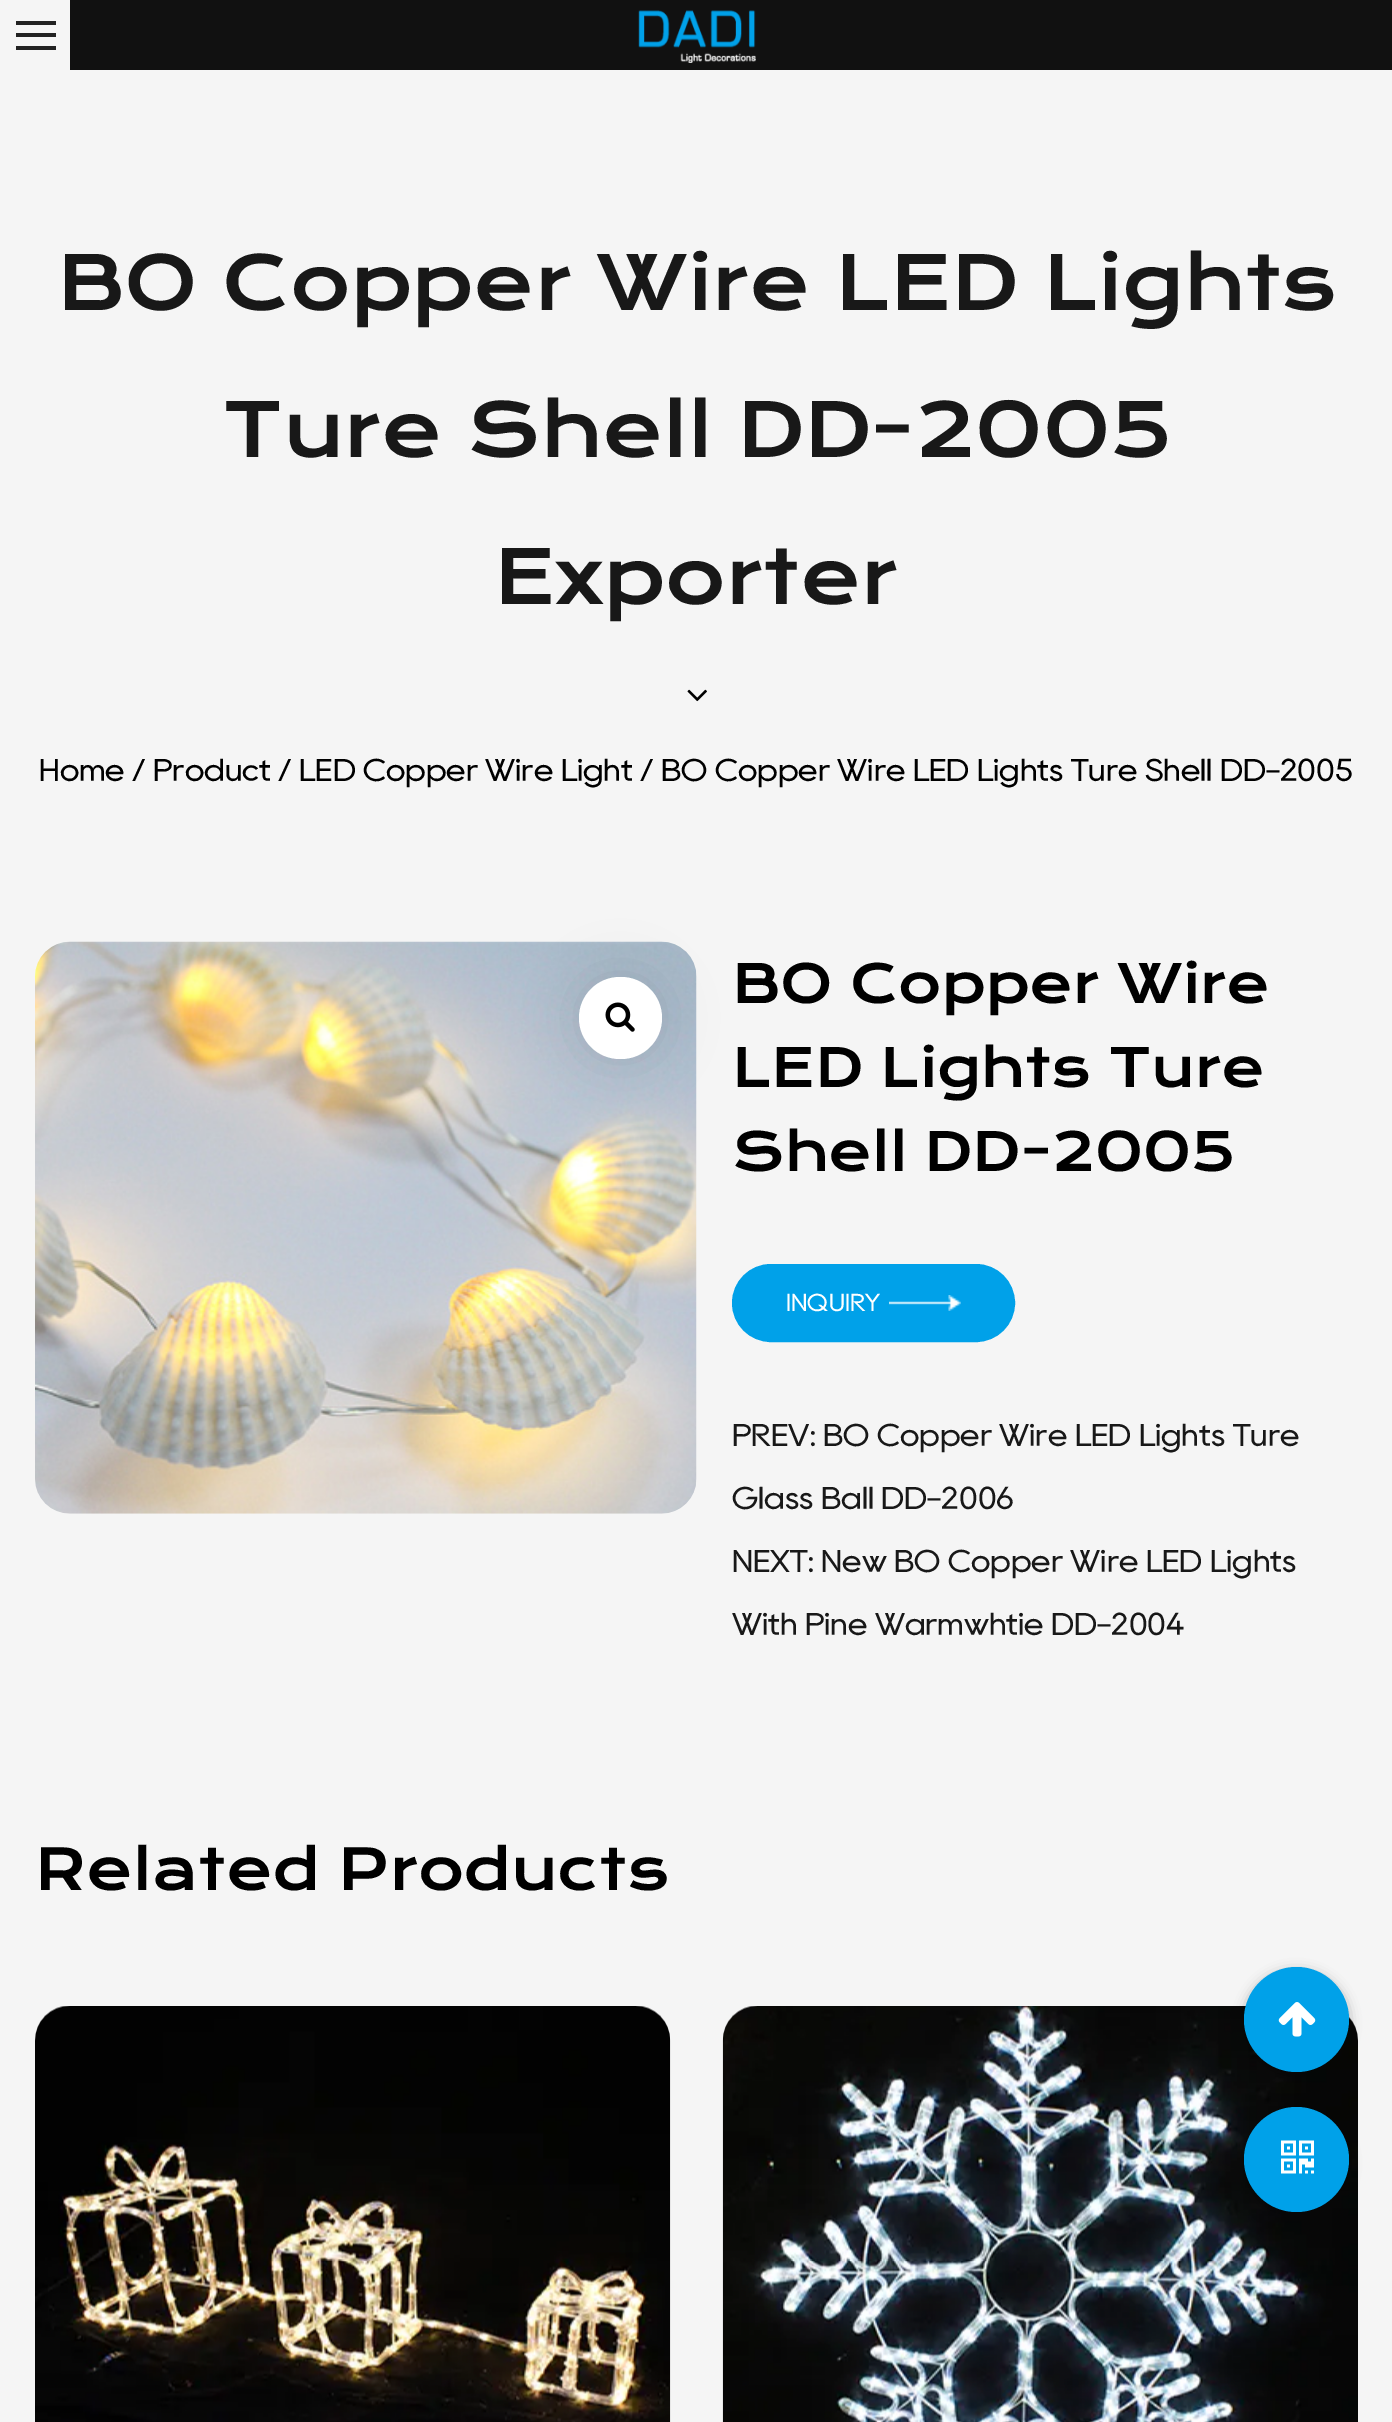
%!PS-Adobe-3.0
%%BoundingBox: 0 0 1392 2422
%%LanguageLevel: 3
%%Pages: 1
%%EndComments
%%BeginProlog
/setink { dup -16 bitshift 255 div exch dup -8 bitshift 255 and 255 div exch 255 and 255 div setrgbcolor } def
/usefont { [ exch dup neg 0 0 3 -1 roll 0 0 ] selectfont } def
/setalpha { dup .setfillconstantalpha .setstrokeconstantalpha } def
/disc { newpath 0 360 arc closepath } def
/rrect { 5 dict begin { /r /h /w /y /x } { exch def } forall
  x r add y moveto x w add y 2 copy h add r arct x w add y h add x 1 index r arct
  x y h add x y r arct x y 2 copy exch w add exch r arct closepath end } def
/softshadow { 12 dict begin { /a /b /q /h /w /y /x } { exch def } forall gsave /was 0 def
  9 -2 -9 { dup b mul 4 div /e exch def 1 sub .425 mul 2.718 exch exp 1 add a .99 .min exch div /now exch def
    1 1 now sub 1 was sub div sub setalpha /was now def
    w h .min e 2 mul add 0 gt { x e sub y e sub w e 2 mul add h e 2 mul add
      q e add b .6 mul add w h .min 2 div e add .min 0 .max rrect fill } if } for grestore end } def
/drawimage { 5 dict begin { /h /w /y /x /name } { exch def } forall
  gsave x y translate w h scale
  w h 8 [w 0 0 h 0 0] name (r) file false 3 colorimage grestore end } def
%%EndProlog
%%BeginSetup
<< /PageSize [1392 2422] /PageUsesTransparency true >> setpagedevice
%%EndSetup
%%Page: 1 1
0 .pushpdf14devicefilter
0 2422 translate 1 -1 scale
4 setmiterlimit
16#F5F5F5 setink
0 0 1392 2422 rectfill
[
    [16 21 40 4 16#222222]
    [16 33 40 4 16#222222]
    [16 46 40 4 16#222222]
    [70 0 1322 70 16#111111]
] { aload pop setink rectfill } forall
(img1.raw) 638 10 118 53 drawimage
/KronaOne-Regular 73.5 usefont
16#181818 setink
[
    [(BO Copper Wire LED Lights) 57 310]
    [(Ture Shell DD-2005) 222 457]
    [(Exporter) 494 604]
] { aload pop moveto show } forall
(img2.raw) 687 689 20 13 drawimage
/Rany-Regular 31.5 usefont
16#000000 setink
39 781 moveto (Home / Product / LED Copper Wire Light / BO Copper Wire LED Lights Ture Shell DD-2005) show
(img4.raw) 35 941 662 573 drawimage
579 977 83 82 41 26 0.1 softshadow
16#FFFFFF setink
579 977 83 82 41 rrect fill
(img3.raw) 605 1002 30 30 drawimage
/KronaOne-Regular 52.5 usefont
16#000000 setink
[
    [(BO Copper Wire) 732 1003]
    [(LED Lights Ture) 732 1087]
    [(Shell DD-2005) 732 1171]
] { aload pop moveto show } forall
16#00A1E9 setink
733 1265 281 76 38 rrect gsave fill grestore
2 setlinewidth
stroke
/Rany-Regular 24.5 usefont
16#FFFFFF setink
786 1311 moveto (INQUIRY) show
(img5.raw) 889 1295 72 16 drawimage
/Rany-Regular 31.5 usefont
16#181818 setink
[
    [(PREV: BO Copper Wire LED Lights Ture) 732 1446]
    [(Glass Ball DD-2006) 732 1509]
    [(NEXT: New BO Copper Wire LED Lights) 732 1572]
    [(With Pine Warmwhtie DD-2004) 732 1635]
] { aload pop moveto show } forall
/KronaOne-Regular 56 usefont
16#000000 setink
35 1890 moveto (Related Products) show
(img6.raw) 35 2006 636 416 drawimage
(img7.raw) 722 2006 636 416 drawimage
1244 1971 105 105 52.5 6 0.3 softshadow
16#00A1E9 setink
1296.5 2019.5 52.5 disc fill
(img8.raw) 1278 2002 38 35 drawimage
16#000000 setink
1244 2111 105 105 52.5 6 0.3 softshadow
16#00A1E9 setink
1296.5 2159.5 52.5 disc fill
(img9.raw) 1281 2140 33 34 drawimage
.poppdf14devicefilter showpage
%%EOF
